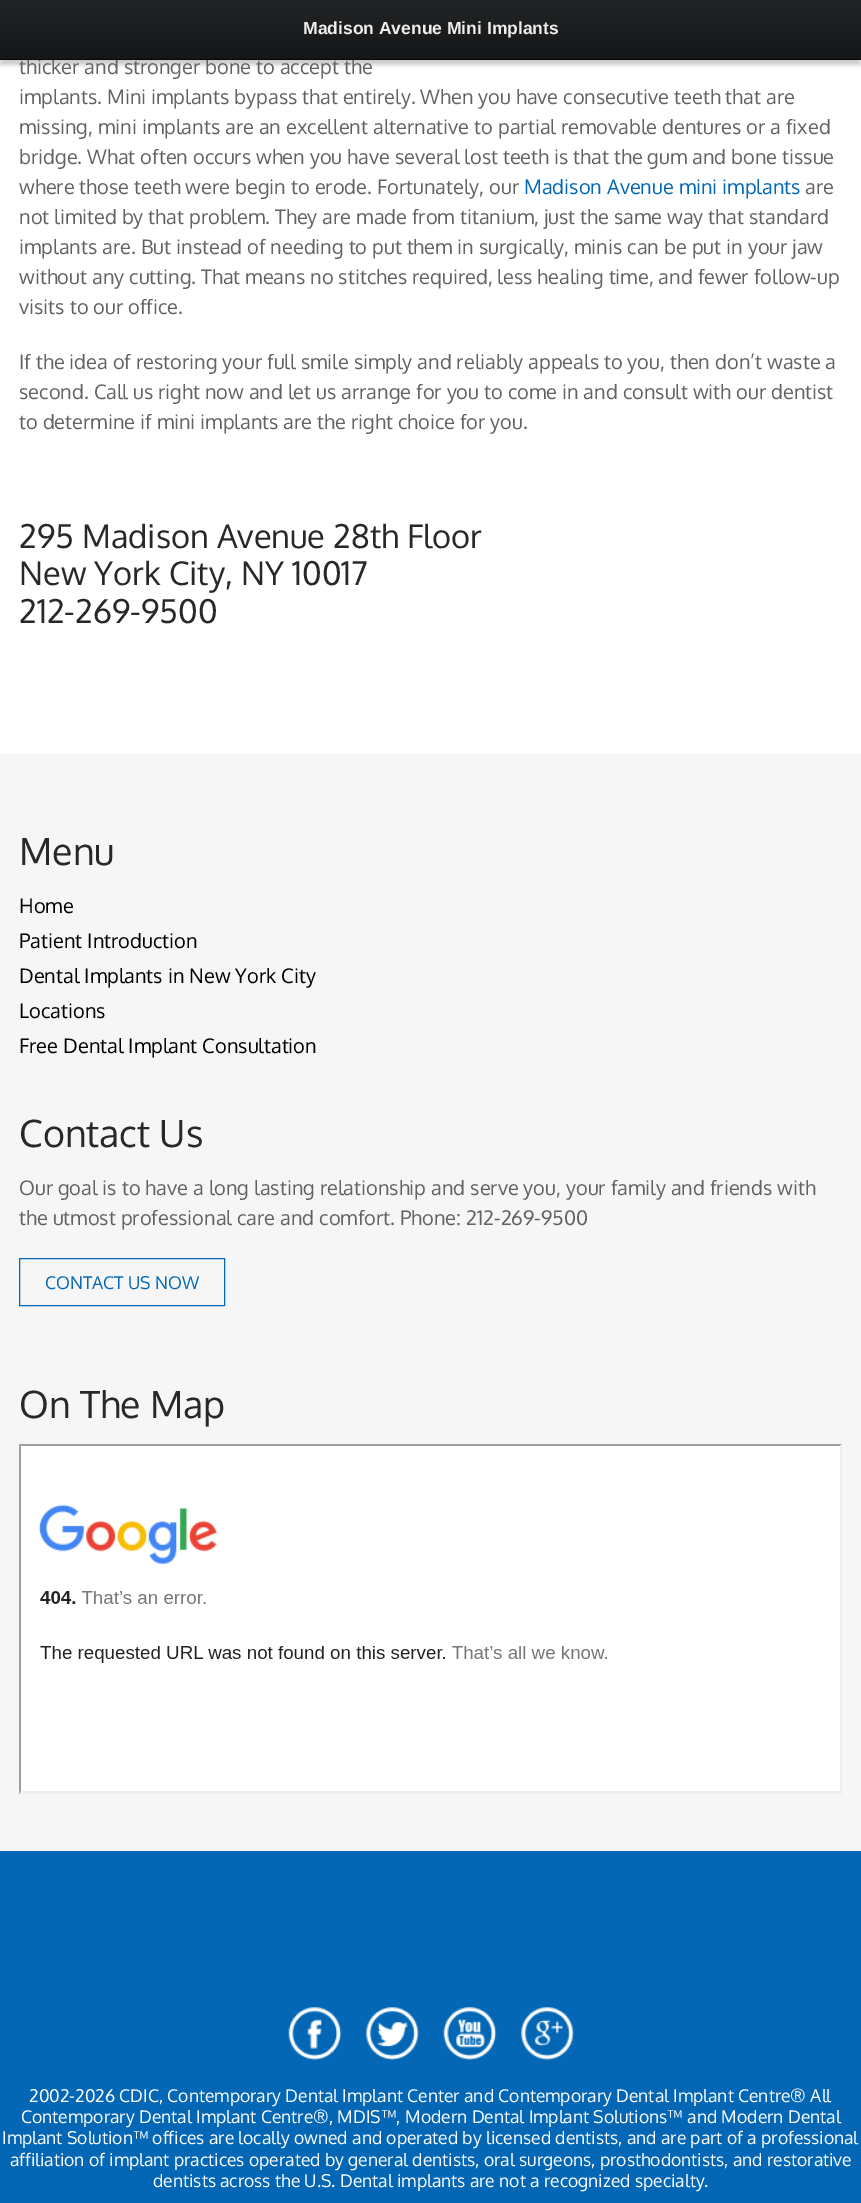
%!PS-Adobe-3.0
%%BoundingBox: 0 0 861 2203
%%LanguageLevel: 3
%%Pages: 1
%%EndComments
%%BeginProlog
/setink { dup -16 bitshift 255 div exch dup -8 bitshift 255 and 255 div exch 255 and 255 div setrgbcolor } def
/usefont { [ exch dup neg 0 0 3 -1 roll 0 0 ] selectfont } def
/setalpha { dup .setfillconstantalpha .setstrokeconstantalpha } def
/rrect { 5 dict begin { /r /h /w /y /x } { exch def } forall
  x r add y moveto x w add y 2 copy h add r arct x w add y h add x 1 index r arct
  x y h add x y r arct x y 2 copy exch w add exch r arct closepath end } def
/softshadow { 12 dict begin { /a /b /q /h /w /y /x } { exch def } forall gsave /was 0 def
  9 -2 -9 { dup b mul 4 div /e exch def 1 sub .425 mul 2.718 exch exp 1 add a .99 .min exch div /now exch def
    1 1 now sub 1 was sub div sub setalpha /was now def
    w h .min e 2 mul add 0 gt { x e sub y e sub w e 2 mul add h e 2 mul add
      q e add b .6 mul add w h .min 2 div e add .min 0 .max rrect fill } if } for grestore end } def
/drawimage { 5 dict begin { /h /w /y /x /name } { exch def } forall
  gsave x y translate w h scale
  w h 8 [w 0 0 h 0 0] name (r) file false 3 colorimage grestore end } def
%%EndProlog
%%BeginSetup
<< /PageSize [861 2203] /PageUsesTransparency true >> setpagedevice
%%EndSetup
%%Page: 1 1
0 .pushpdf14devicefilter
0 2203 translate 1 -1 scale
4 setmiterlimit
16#FFFFFF setink
0 0 861 2203 rectfill
16#000000 setink
0 5 861 60 0 2 0.2 softshadow
gsave 0 0 moveto 861 0 lineto 861 59 lineto 0 59 lineto closepath clip newpath
<< /ShadingType 2 /ColorSpace /DeviceRGB /Coords [0 59 0 0] /Extend [true true] /Function << /FunctionType 3 /Domain [0 1] /Functions [<< /FunctionType 2 /Domain [0 1] /C0 [0.078 0.086 0.09] /C1 [0.078 0.086 0.09] /N 1 >> << /FunctionType 2 /Domain [0 1] /C0 [0.078 0.086 0.09] /C1 [0.133 0.141 0.149] /N 1 >>] /Bounds [0.01] /Encode [0 1 0 1] >> >> shfill grestore
/Oxygen-Regular 20 usefont
16#626262 setink
19 74 moveto (thicker and stronger bone to accept the) show
16#070708 setink
0 59 861 1 rectfill
/LiberationSans-Bold 17.5 usefont
16#EEEEEE setink
303 34 moveto (Madison Avenue Mini Implants) show
/Oxygen-Regular 20 usefont
16#626262 setink
[
    [(implants. Mini implants bypass that entirely. When you have consecutive teeth that are) 19 104]
    [(missing, mini implants are an excellent alternative to partial removable dentures or a fixed) 19 134]
    [(bridge. What often occurs when you have several lost teeth is that the gum and bone tissue) 19 164]
    [(where those teeth were begin to erode. Fortunately, our) 19 194]
] { aload pop moveto show } forall
16#0367B5 setink
524 194 moveto (Madison Avenue mini implants) show
16#626262 setink
[
    [(are) 805 194]
    [(not limited by that problem. They are made from titanium, just the same way that standard) 19 224]
    [(implants are. But instead of needing to put them in surgically, minis can be put in your jaw) 19 254]
    [(without any cutting. That means no stitches required, less healing time, and fewer follow-up) 19 284]
    [(visits to our office.) 19 314]
    [(If the idea of restoring your full smile simply and reliably appeals to you, then don’t waste a) 19 369]
    [(second. Call us right now and let us arrange for you to come in and consult with our dentist) 19 399]
    [(to determine if mini implants are the right choice for you.) 19 429]
] { aload pop moveto show } forall
/Oxygen-Regular 32.5 usefont
16#282828 setink
[
    [(295 Madison Avenue 28th Floor) 19 548]
    [(New York City, NY 10017) 19 585]
    [(212-269-9500) 19 623]
] { aload pop moveto show } forall
16#F7F6F6 setink
0 754 861 1097 rectfill
/Oxygen-Regular 37.5 usefont
16#282828 setink
19 865 moveto (Menu) show
/Oxygen-Regular 20 usefont
16#000000 setink
[
    [(Home) 19 913]
    [(Patient Introduction) 19 948]
    [(Dental Implants in New York City) 19 983]
    [(Locations) 19 1018]
    [(Free Dental Implant Consultation) 19 1053]
] { aload pop moveto show } forall
/Oxygen-Regular 37.5 usefont
16#282828 setink
19 1147 moveto (Contact Us) show
/Oxygen-Regular 20 usefont
16#626262 setink
19 1195 moveto (Our goal is to have a long lasting relationship and serve you, your family and friends with) show
19 1225 moveto (the utmost professional care and comfort. Phone: 212-269-9500) show
16#0367B5 setink
19.5 1258.5 205 47 rectstroke
/Oxygen-Regular 17.5 usefont
45 1289 moveto (CONTACT US NOW) show
/Oxygen-Regular 37.5 usefont
16#282828 setink
19 1418 moveto (On The Map) show
16#9F9F9F setink
19 1444 moveto 842 1444 lineto 840 1446 lineto 21 1446 lineto closepath fill
16#EEEEEE setink
842 1444 moveto 842 1794 lineto 840 1791 lineto 840 1446 lineto closepath fill
842 1794 moveto 19 1794 lineto 21 1791 lineto 840 1791 lineto closepath fill
16#9F9F9F setink
19 1794 moveto 19 1444 lineto 21 1446 lineto 21 1791 lineto closepath fill
(img1.raw) 21 1446 819 345 drawimage
16#0367B5 setink
0 1851 861 352 rectfill
(img2.raw) 288 2007 54 53 drawimage
(img3.raw) 366 2007 53 53 drawimage
(img4.raw) 443 2007 54 53 drawimage
(img5.raw) 521 2007 53 53 drawimage
/Oxygen-Regular 17.5 usefont
16#FFFFFF setink
[
    [(2002-2026 CDIC, Contemporary Dental Implant Center and Contemporary Dental Implant Centre® All) 29 2102]
    [(Contemporary Dental Implant Centre®, MDIS™, Modern Dental Implant Solutions™ and Modern Dental) 21 2123]
    [(Implant Solution™ offices are locally owned and operated by licensed dentists, and are part of a professional) 2 2144]
    [(affiliation of implant practices operated by general dentists, oral surgeons, prosthodontists, and restorative) 10 2166]
    [(dentists across the U.S. Dental implants are not a recognized specialty.) 153 2187]
] { aload pop moveto show } forall
.poppdf14devicefilter showpage
%%EOF
